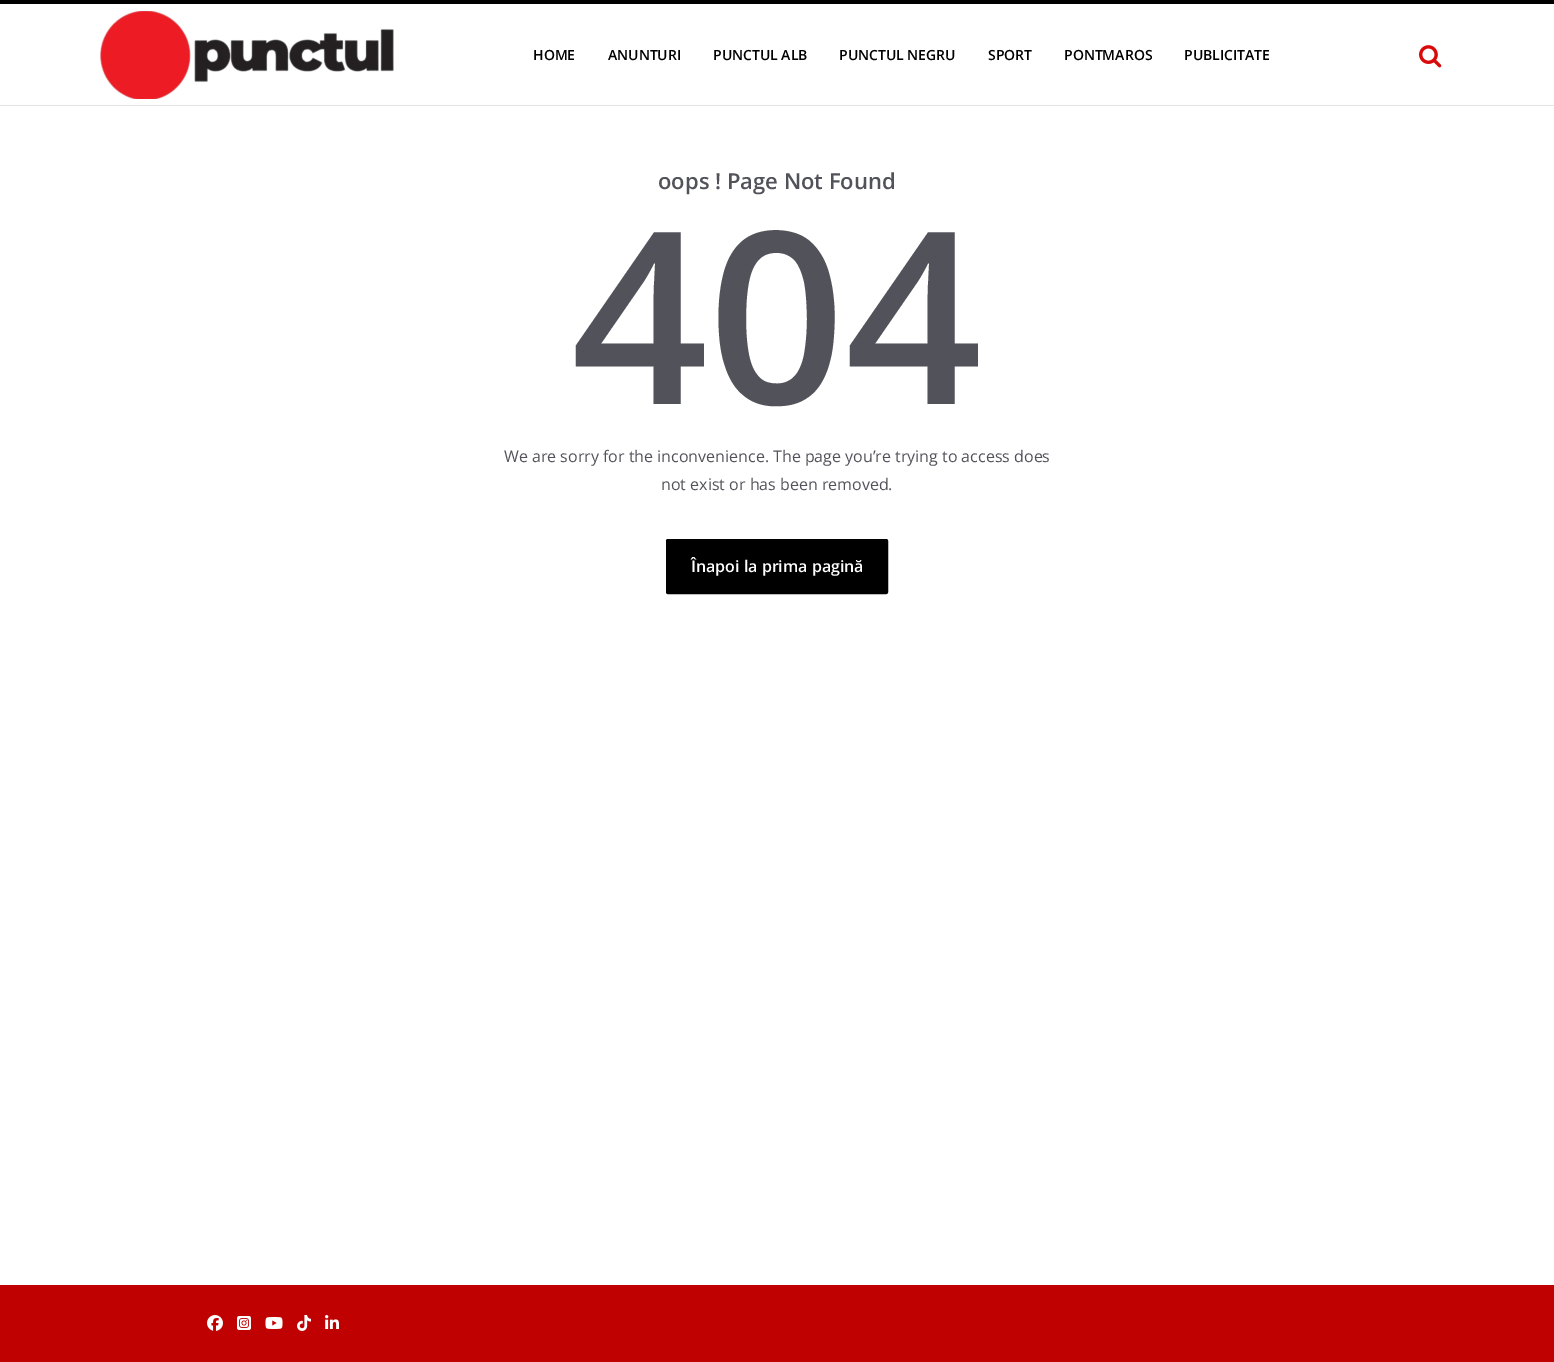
%!PS-Adobe-3.0
%%BoundingBox: 0 0 1554 1362
%%LanguageLevel: 3
%%Pages: 1
%%EndComments
%%BeginProlog
/setink { dup -16 bitshift 255 div exch dup -8 bitshift 255 and 255 div exch 255 and 255 div setrgbcolor } def
/usefont { [ exch dup neg 0 0 3 -1 roll 0 0 ] selectfont } def
/rrect { 5 dict begin { /r /h /w /y /x } { exch def } forall
  x r add y moveto x w add y 2 copy h add r arct x w add y h add x 1 index r arct
  x y h add x y r arct x y 2 copy exch w add exch r arct closepath end } def
/drawimage { 5 dict begin { /h /w /y /x /name } { exch def } forall
  gsave x y translate w h scale
  w h 8 [w 0 0 h 0 0] name (r) file false 3 colorimage grestore end } def
%%EndProlog
%%BeginSetup
<< /PageSize [1554 1362] >> setpagedevice
%%EndSetup
%%Page: 1 1
0 1362 translate 1 -1 scale
4 setmiterlimit
16#FFFFFF setink
0 0 1554 1362 rectfill
16#E4E4E7 setink
0 105 1554 1 rectfill
16#000000 setink
0 0 1554 4 rectfill
(img1.raw) 100 11 294 88 drawimage
/OpenSans-SemiBold 14 usefont
[
    [(HOME) 533 60]
    [(ANUNTURI) 608 60]
    [(PUNCTUL ALB) 713 60]
    [(PUNCTUL NEGRU) 839 60]
    [(SPORT) 988 60]
    [(PONTMAROS) 1064 60]
    [(PUBLICITATE) 1184 60]
] { aload pop moveto show } forall
(img2.raw) 1419 45 23 23 drawimage
/OpenSans-SemiBold 22 usefont
16#52525B setink
658 189 moveto (oops ! Page Not Found) show
/OpenSans-SemiBold 240 usefont
571 404 moveto (404) show
/OpenSans-Regular 16 usefont
504 462 moveto (We are sorry for the inconvenience. The page you’re trying to access does) show
661 490 moveto (not exist or has been removed.) show
16#000000 setink
666.5 539.5 221 54 1.5 rrect gsave fill grestore
stroke
/OpenSans-SemiBold 16 usefont
16#FFFFFF setink
691 572 moveto (Înapoi la prima pagină) show
16#C00101 setink
0 1285 1554 77 rectfill
(img3.raw) 207 1315 16 16 drawimage
(img4.raw) 237 1316 14 14 drawimage
(img5.raw) 265 1317 18 12 drawimage
(img6.raw) 297 1315 14 16 drawimage
(img7.raw) 325 1315 14 14 drawimage
showpage
%%EOF
